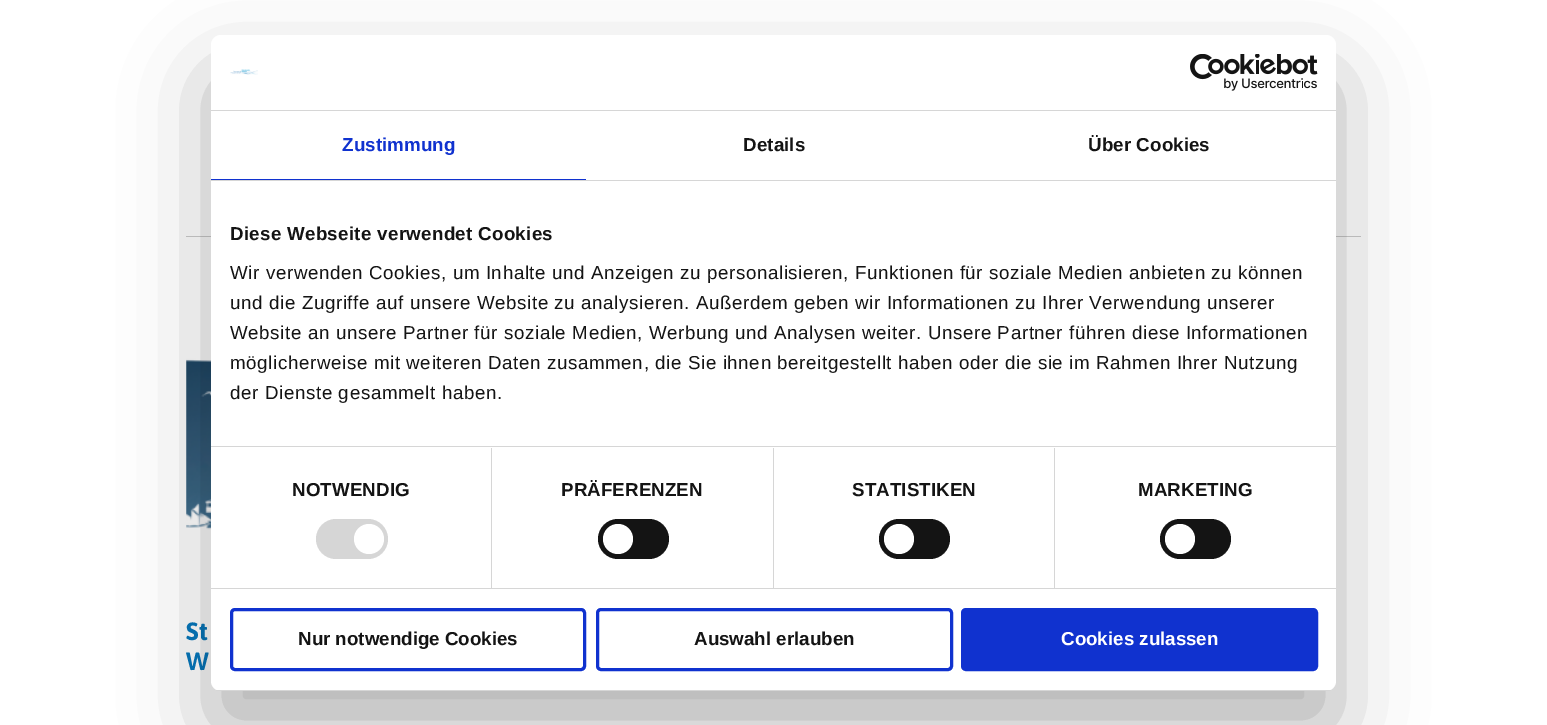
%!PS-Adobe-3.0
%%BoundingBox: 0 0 1547 725
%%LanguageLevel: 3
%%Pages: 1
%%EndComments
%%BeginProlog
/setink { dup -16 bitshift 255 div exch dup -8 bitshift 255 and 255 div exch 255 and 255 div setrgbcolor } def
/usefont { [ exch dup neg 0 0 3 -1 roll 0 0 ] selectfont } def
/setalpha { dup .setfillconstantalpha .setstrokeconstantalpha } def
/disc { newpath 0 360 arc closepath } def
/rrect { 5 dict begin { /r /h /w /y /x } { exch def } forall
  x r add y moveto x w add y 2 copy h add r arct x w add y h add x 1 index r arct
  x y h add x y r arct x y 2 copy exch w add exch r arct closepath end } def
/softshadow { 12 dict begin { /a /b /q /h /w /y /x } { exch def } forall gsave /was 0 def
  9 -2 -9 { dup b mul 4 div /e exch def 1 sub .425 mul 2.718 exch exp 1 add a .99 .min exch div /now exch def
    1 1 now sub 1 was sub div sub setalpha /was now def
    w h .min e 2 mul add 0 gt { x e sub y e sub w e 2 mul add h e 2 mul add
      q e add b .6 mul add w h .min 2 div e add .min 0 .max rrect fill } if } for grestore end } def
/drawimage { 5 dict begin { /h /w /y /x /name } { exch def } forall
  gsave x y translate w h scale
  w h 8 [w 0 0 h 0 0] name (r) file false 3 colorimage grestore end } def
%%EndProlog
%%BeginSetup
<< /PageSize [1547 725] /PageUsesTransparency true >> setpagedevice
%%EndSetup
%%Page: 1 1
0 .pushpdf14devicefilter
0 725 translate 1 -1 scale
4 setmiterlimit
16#FFFFFF setink
0 0 1547 725 rectfill
16#CCCCCC setink
186 236 1175 1 rectfill
(img1.raw) 186 356 25 174 drawimage
/Asap-Bold 25 usefont
16#0577BB setink
186 640 moveto (St) show
186 670 moveto (W) show
16#000000 setink
211 75 1125 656 10 42.5 0.3 softshadow
16#FFFFFF setink
211 35 1125 656 10 rrect fill
16#D6D6D6 setink
211 110 1125 1 rectfill
(img2.raw) 230 69 28 6 drawimage
(img3.raw) 1190 54 128 37 drawimage
211 180 1125 1 rectfill
16#1032CF setink
211 179 375 1 rectfill
/LiberationSans-Bold 18.75 usefont
342 151 moveto 0.1 0 (Zustimmung) ashow
16#141414 setink
743 151 moveto 0.1 0 (Details) ashow
1088 151 moveto 0.1 0 (Über Cookies) ashow
16#D6D6D6 setink
211 446 1125 1 rectfill
16#141414 setink
230 240 moveto 0.3 0 (Diese Webseite verwendet Cookies) ashow
/LiberationSans-Regular 18.75 usefont
230 279 moveto 0.62 0 (Wir verwenden Cookies, um Inhalte und Anzeigen zu personalisieren, Funktionen für soziale Medien anbieten zu können) ashow
230 309 moveto 0.62 0 (und die Zugriffe auf unsere Website zu analysieren. Außerdem geben wir Informationen zu Ihrer Verwendung unserer) ashow
230 339 moveto 0.62 0 (Website an unsere Partner für soziale Medien, Werbung und Analysen weiter. Unsere Partner führen diese Informationen) ashow
230 369 moveto 0.62 0 (möglicherweise mit weiteren Daten zusammen, die Sie ihnen bereitgestellt haben oder die sie im Rahmen Ihrer Nutzung) ashow
230 399 moveto 0.62 0 (der Dienste gesammelt haben.) ashow
16#D6D6D6 setink
211 588 1125 1 rectfill
491 448 1 140 rectfill
/LiberationSans-Bold 18.75 usefont
16#141414 setink
292 496 moveto 0.1 0 (NOTWENDIG) ashow
16#D6D6D6 setink
316 519 72 40 20 rrect fill
16#FFFFFF setink
369 539 15 disc fill
16#D6D6D6 setink
773 448 1 140 rectfill
16#141414 setink
561 496 moveto 0.1 0 (PRÄFERENZEN) ashow
598 519 71 40 20 rrect fill
16#FFFFFF setink
618 539 15 disc fill
16#D6D6D6 setink
1054 448 1 140 rectfill
16#141414 setink
852 496 moveto 0.1 0 (STATISTIKEN) ashow
879 519 71 40 20 rrect fill
16#FFFFFF setink
899 539 15 disc fill
16#141414 setink
1138 496 moveto 0.1 0 (MARKETING) ashow
1160 519 71 40 20 rrect fill
16#FFFFFF setink
1180 539 15 disc fill
gsave
211 35 1125 656 10 rrect clip newpath
16#D6D6D6 setink
211 690 1125 1 rectfill
grestore
16#1032CF setink
3 setlinewidth
231.5 609.5 353 60 3.5 rrect stroke
16#141414 setink
298 645 moveto (Nur notwendige Cookies) show
16#1032CF setink
597.5 609.5 354 60 3.5 rrect stroke
16#141414 setink
694 645 moveto (Auswahl erlauben) show
16#1032CF setink
962.5 609.5 354 60 3.5 rrect gsave fill grestore
stroke
16#FFFFFF setink
1061 645 moveto (Cookies zulassen) show
.poppdf14devicefilter showpage
%%EOF
